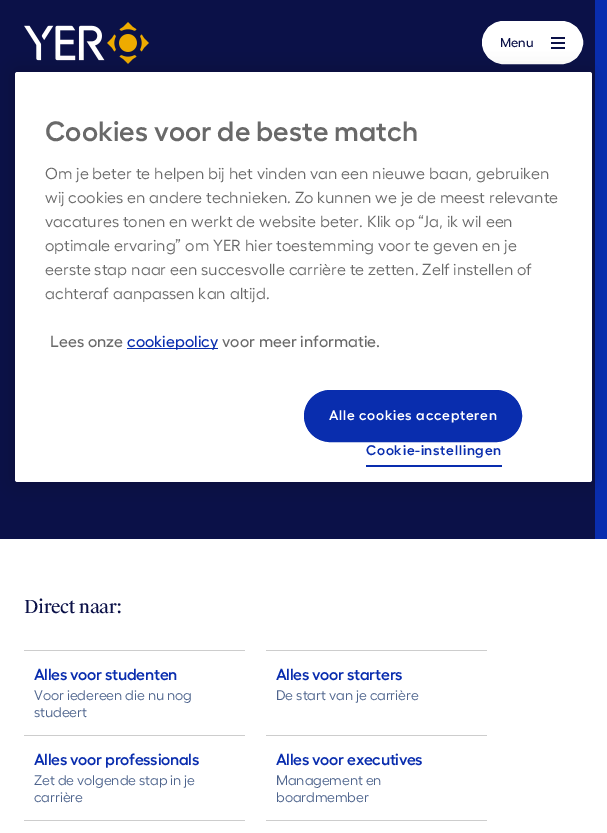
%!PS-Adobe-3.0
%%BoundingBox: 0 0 607 833
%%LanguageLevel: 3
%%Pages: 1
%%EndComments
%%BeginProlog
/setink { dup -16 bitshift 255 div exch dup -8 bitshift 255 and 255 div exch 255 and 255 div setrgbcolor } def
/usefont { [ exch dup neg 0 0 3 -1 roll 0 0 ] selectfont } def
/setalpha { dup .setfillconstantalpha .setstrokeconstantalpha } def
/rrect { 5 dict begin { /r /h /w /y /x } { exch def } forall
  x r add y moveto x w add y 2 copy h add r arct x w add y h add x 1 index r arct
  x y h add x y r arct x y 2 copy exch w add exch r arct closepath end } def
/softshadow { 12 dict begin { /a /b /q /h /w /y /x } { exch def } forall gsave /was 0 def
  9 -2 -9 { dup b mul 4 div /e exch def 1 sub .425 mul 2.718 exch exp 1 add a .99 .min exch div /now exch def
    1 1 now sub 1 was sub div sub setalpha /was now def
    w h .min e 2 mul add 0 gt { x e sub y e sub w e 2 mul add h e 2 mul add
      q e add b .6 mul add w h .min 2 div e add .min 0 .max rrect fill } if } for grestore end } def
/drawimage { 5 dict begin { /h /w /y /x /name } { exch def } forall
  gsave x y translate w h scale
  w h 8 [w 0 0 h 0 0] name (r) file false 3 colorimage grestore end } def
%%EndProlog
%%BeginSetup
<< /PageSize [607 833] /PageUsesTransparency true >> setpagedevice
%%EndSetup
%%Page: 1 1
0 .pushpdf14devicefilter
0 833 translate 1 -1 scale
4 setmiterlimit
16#FFFFFF setink
0 0 607 833 rectfill
16#0B1148 setink
0 0 595 539 rectfill
16#092DAE setink
595 0 12 539 rectfill
(img1.raw) 24 22 125 42 drawimage
16#FFFFFF setink
482.5 21.5 100 42 21 rrect gsave fill grestore
stroke
/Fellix-Medium 13 usefont
16#0B1148 setink
500 47 moveto (Menu) show
[
    [551 42 14 2 16#0B1148]
    [551 47 14 2 16#0B1148]
    [551 37 14 2 16#0B1148]
] { aload pop setink rectfill } forall
/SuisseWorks-Regular 18 usefont
24 613 moveto -0.4 0 (Direct naar:) ashow
16#CDCDCD setink
24 650 221 1 rectfill
/Fellix-SemiBold 16 usefont
16#092DAE setink
34 680 moveto -0.3 0 (Alles voor studenten) ashow
/Fellix-Regular 14 usefont
16#4D638C setink
34 700 moveto -0.15 0 (Voor iedereen die nu nog) ashow
34 717 moveto -0.15 0 (studeert) ashow
16#CDCDCD setink
266 650 221 1 rectfill
/Fellix-SemiBold 16 usefont
16#092DAE setink
276 680 moveto -0.3 0 (Alles voor starters) ashow
/Fellix-Regular 14 usefont
16#4D638C setink
276 700 moveto -0.15 0 (De start van je carrière) ashow
16#CDCDCD setink
24 735 221 1 rectfill
/Fellix-SemiBold 16 usefont
16#092DAE setink
34 765 moveto -0.3 0 (Alles voor professionals) ashow
/Fellix-Regular 14 usefont
16#4D638C setink
34 785 moveto -0.15 0 (Zet de volgende stap in je) ashow
34 802 moveto -0.15 0 (carrière) ashow
16#CDCDCD setink
266 735 221 1 rectfill
/Fellix-SemiBold 16 usefont
16#092DAE setink
276 765 moveto -0.3 0 (Alles voor executives) ashow
/Fellix-Regular 14 usefont
16#4D638C setink
276 785 moveto -0.15 0 (Management en) ashow
276 802 moveto -0.15 0 (boardmember) ashow
16#CDCDCD setink
24 820 221 1 rectfill
266 820 221 1 rectfill
16#000000 setink
15 72 577 410 2.5 9 0.2 softshadow
16#FFFFFF setink
15 72 577 410 2.5 rrect fill
/Fellix-SemiBold 28 usefont
16#696969 setink
45 141 moveto (Cookies voor de beste match) show
/Fellix-Regular 16 usefont
[
    [(Om je beter te helpen bij het vinden van een nieuwe baan, gebruiken) 45 179]
    [(wij cookies en andere technieken. Zo kunnen we je de meest relevante) 45 203]
    [(vacatures tonen en werkt de website beter. Klik op “Ja, ik wil een) 45 227]
    [(optimale ervaring” om YER hier toestemming voor te geven en je) 45 251]
    [(eerste stap naar een succesvolle carrière te zetten. Zelf instellen of) 45 275]
    [(achteraf aanpassen kan altijd.) 45 299]
] { aload pop moveto show } forall
/Fellix-Medium 16 usefont
50 347 moveto (Lees onze) show
16#092DAE setink
127 348 91 1 rectfill
127 347 moveto (cookiepolicy) show
16#696969 setink
222 347 moveto (voor meer informatie.) show
16#092DAE setink
304.5 390.5 217 51 25.5 rrect gsave fill grestore
stroke
/Fellix-SemiBold 14 usefont
16#FFFFFF setink
329 420 moveto 0.7 0 (Alle cookies accepteren) ashow
16#092DAE setink
366 455 moveto 0.7 0 (Cookie-instellingen) ashow
366 465 136 2 rectfill
.poppdf14devicefilter showpage
%%EOF
